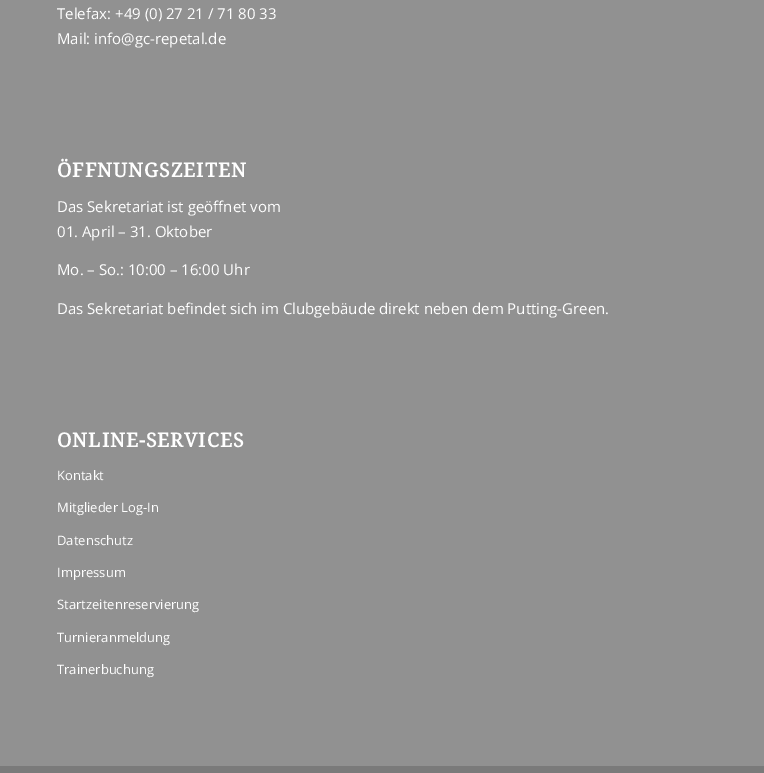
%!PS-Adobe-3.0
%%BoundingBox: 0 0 764 773
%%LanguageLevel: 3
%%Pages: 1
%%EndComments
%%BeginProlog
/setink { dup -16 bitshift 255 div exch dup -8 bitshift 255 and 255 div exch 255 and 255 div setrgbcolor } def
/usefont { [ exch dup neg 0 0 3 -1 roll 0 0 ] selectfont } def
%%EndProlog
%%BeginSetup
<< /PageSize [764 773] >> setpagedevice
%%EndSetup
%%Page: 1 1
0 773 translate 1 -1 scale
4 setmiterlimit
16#919191 setink
0 0 764 773 rectfill
/OpenSans-Regular 15 usefont
16#FFFFFF setink
57 19 moveto (Telefax: +49 \(0\) 27 21 / 71 80 33) show
57 44 moveto (Mail: info@gc-repetal.de) show
/DroidSerif-Bold 19.5 usefont
57 177 moveto 1 0 (ÖFFNUNGSZEITEN) ashow
/OpenSans-Regular 15 usefont
[
    [(Das Sekretariat ist geöffnet vom) 57 212]
    [(01. April – 31. Oktober) 57 237]
    [(Mo. – So.: 10:00 – 16:00 Uhr) 57 275]
    [(Das Sekretariat befindet sich im Clubgebäude direkt neben dem Putting-Green.) 57 314]
] { aload pop moveto show } forall
/DroidSerif-Bold 19.5 usefont
57 447 moveto 1 0 (ONLINE-SERVICES) ashow
/OpenSans-Regular 13 usefont
[
    [(Kontakt) 57 480]
    [(Mitglieder Log-In) 57 512]
    [(Datenschutz) 57 545]
    [(Impressum) 57 577]
    [(Startzeitenreservierung) 57 609]
    [(Turnieranmeldung) 57 642]
    [(Trainerbuchung) 57 674]
] { aload pop moveto show } forall
16#7A7A7A setink
0 766 764 7 rectfill
showpage
%%EOF
